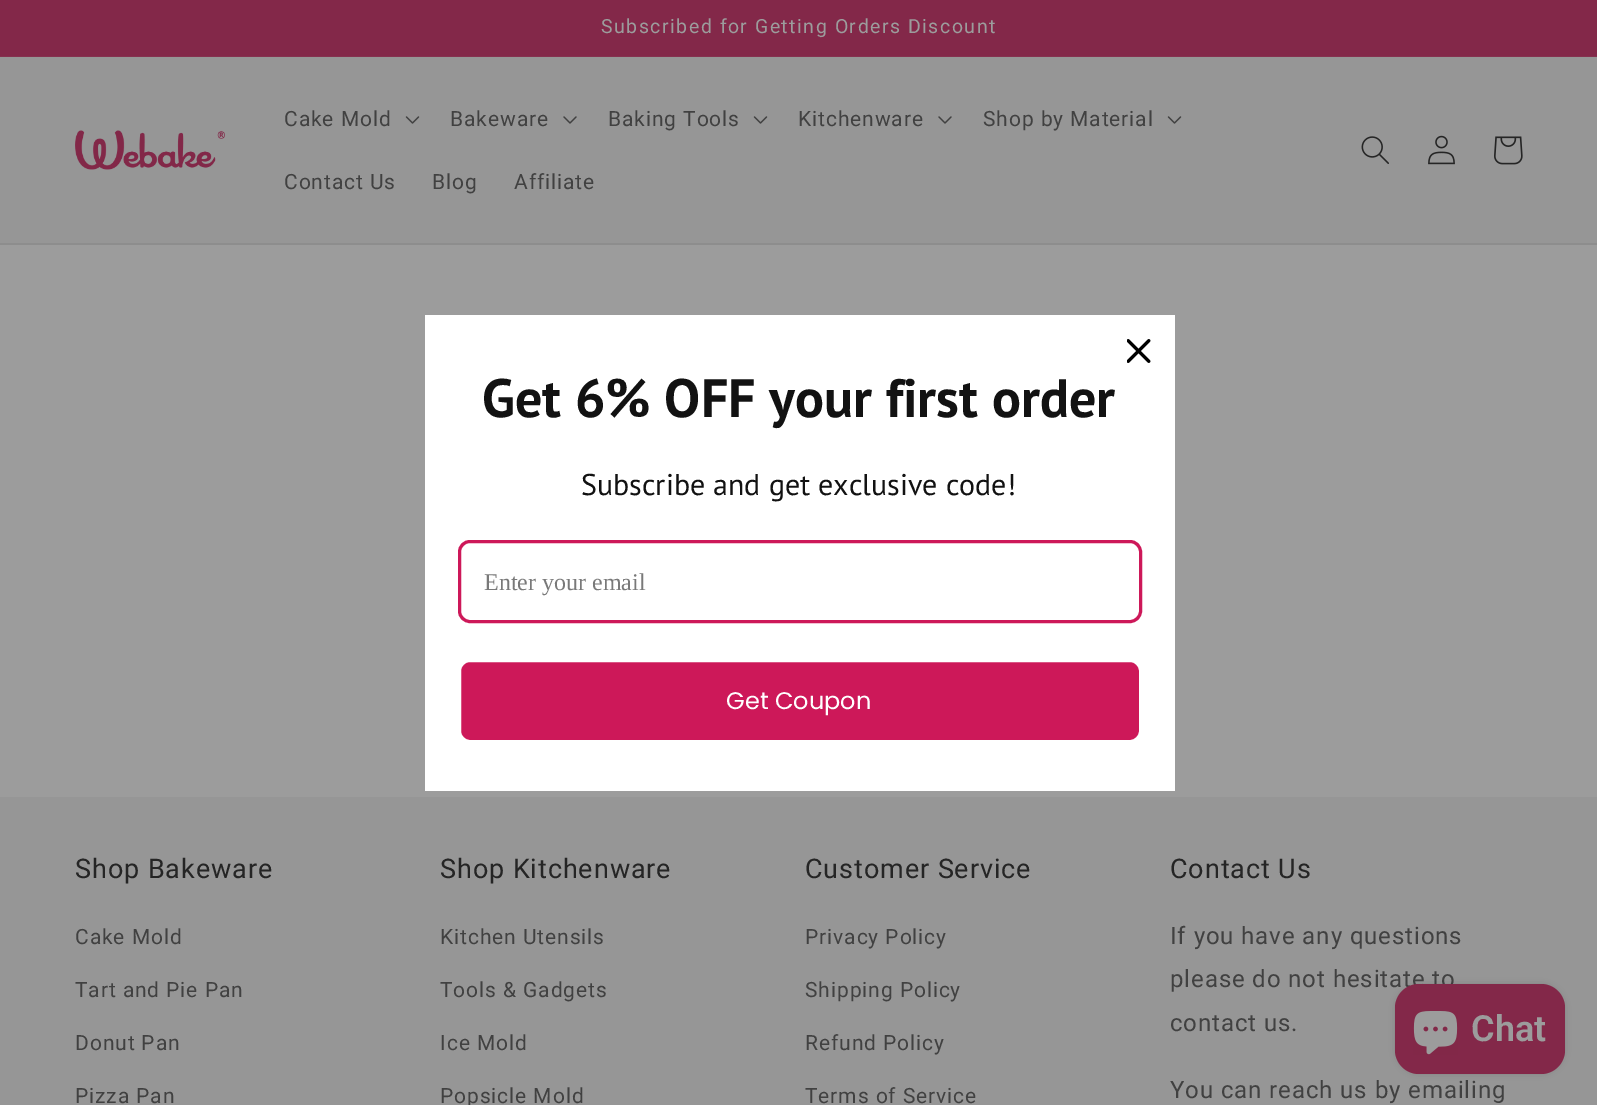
%!PS-Adobe-3.0
%%BoundingBox: 0 0 1597 1105
%%LanguageLevel: 3
%%Pages: 1
%%EndComments
%%BeginProlog
/setink { dup -16 bitshift 255 div exch dup -8 bitshift 255 and 255 div exch 255 and 255 div setrgbcolor } def
/usefont { [ exch dup neg 0 0 3 -1 roll 0 0 ] selectfont } def
/setalpha { dup .setfillconstantalpha .setstrokeconstantalpha } def
/rrect { 5 dict begin { /r /h /w /y /x } { exch def } forall
  x r add y moveto x w add y 2 copy h add r arct x w add y h add x 1 index r arct
  x y h add x y r arct x y 2 copy exch w add exch r arct closepath end } def
/softshadow { 12 dict begin { /a /b /q /h /w /y /x } { exch def } forall gsave /was 0 def
  9 -2 -9 { dup b mul 4 div /e exch def 1 sub .425 mul 2.718 exch exp 1 add a .99 .min exch div /now exch def
    1 1 now sub 1 was sub div sub setalpha /was now def
    w h .min e 2 mul add 0 gt { x e sub y e sub w e 2 mul add h e 2 mul add
      q e add b .6 mul add w h .min 2 div e add .min 0 .max rrect fill } if } for grestore end } def
/drawimage { 5 dict begin { /h /w /y /x /name } { exch def } forall
  gsave x y translate w h scale
  w h 8 [w 0 0 h 0 0] name (r) file false 3 colorimage grestore end } def
%%EndProlog
%%BeginSetup
<< /PageSize [1597 1105] /PageUsesTransparency true >> setpagedevice
%%EndSetup
%%Page: 1 1
0 .pushpdf14devicefilter
0 1105 translate 1 -1 scale
4 setmiterlimit
16#9C9C9C setink
0 0 1597 1105 rectfill
16#832849 setink
0 0 1597 56 rectfill
16#85314F setink
0 56 1597 1 rectfill
/Roboto-Regular 19.5 usefont
16#9C9C9C setink
601 33 moveto 1.5 0 (Subscribed for Getting Orders Discount) ashow
16#969696 setink
0 57 1597 186 rectfill
16#8D8D8D setink
0 243 1597 2 rectfill
(img1.raw) 75 130 150 40 drawimage
/Roboto-Regular 21 usefont
16#414141 setink
284 126 moveto 0.9 0 (Cake Mold) ashow
(img2.raw) 405 116 15 8 drawimage
450 126 moveto 0.9 0 (Bakeware) ashow
(img3.raw) 563 116 14 8 drawimage
608 126 moveto 0.9 0 (Baking Tools) ashow
(img2.raw) 753 116 15 8 drawimage
798 126 moveto 0.9 0 (Kitchenware) ashow
(img3.raw) 938 116 14 8 drawimage
983 126 moveto 0.9 0 (Shop by Material) ashow
(img2.raw) 1167 116 15 8 drawimage
284 189 moveto 0.9 0 (Contact Us) ashow
432 189 moveto 0.9 0 (Blog) ashow
514 189 moveto 0.9 0 (Affiliate) ashow
(img4.raw) 1361 136 28 28 drawimage
(img5.raw) 1428 135 27 30 drawimage
(img6.raw) 1494 136 29 29 drawimage
16#FFFFFF setink
425 315 750 476 rectfill
(img7.raw) 1127 339 24 24 drawimage
/PTSans-Bold 54 usefont
16#121212 setink
482 417 moveto (Get 6% OFF your first order) show
/PTSans-Regular 30 usefont
581 495 moveto (Subscribe and get exclusive code!) show
16#CD1859 setink
3 setlinewidth
459.5 541.5 681 80 10.5 rrect stroke
/LiberationSerif-Regular 24 usefont
16#797979 setink
484 590 moveto (Enter your email) show
16#CD1859 setink
459.5 660.5 681 81 10.5 rrect gsave fill grestore
16#FFFFFF setink
stroke
/Poppins-Regular 24 usefont
726 709 moveto (Get Coupon) show
16#969696 setink
0 797 1597 308 rectfill
/Roboto-Regular 27 usefont
16#252525 setink
75 878 moveto 0.9 0 (Shop Bakeware) ashow
/Roboto-Regular 21 usefont
16#414141 setink
75 944 moveto 0.9 0 (Cake Mold) ashow
75 997 moveto 0.9 0 (Tart and Pie Pan) ashow
75 1050 moveto 0.9 0 (Donut Pan) ashow
75 1103 moveto 0.9 0 (Pizza Pan) ashow
/Roboto-Regular 27 usefont
16#252525 setink
440 878 moveto 0.9 0 (Shop Kitchenware) ashow
/Roboto-Regular 21 usefont
16#414141 setink
440 944 moveto 0.9 0 (Kitchen Utensils) ashow
440 997 moveto 0.9 0 (Tools & Gadgets) ashow
440 1050 moveto 0.9 0 (Ice Mold) ashow
440 1103 moveto 0.9 0 (Popsicle Mold) ashow
/Roboto-Regular 27 usefont
16#252525 setink
805 878 moveto 0.9 0 (Customer Service) ashow
/Roboto-Regular 21 usefont
16#414141 setink
805 944 moveto 0.9 0 (Privacy Policy) ashow
805 997 moveto 0.9 0 (Shipping Policy) ashow
805 1050 moveto 0.9 0 (Refund Policy) ashow
805 1103 moveto 0.9 0 (Terms of Service) ashow
/Roboto-Regular 27 usefont
16#252525 setink
1170 878 moveto 0.9 0 (Contact Us) ashow
/Roboto-Regular 24 usefont
16#414141 setink
1170 944 moveto 0.9 0 (If you have any questions) ashow
1170 987 moveto 0.9 0 (please do not hesitate to) ashow
1170 1031 moveto 0.9 0 (contact us.) ashow
1170 1098 moveto 0.9 0 (You can reach us by emailing) ashow
16#1C1C1C setink
1395 984 170 90 24 4 0.15 softshadow
16#832849 setink
1395 984 170 90 24 rrect fill
(img8.raw) 1413 1011 45 44 drawimage
/Roboto-SemiBold 36 usefont
16#9C9C9C setink
1471 1041 moveto (Chat) show
.poppdf14devicefilter showpage
%%EOF
